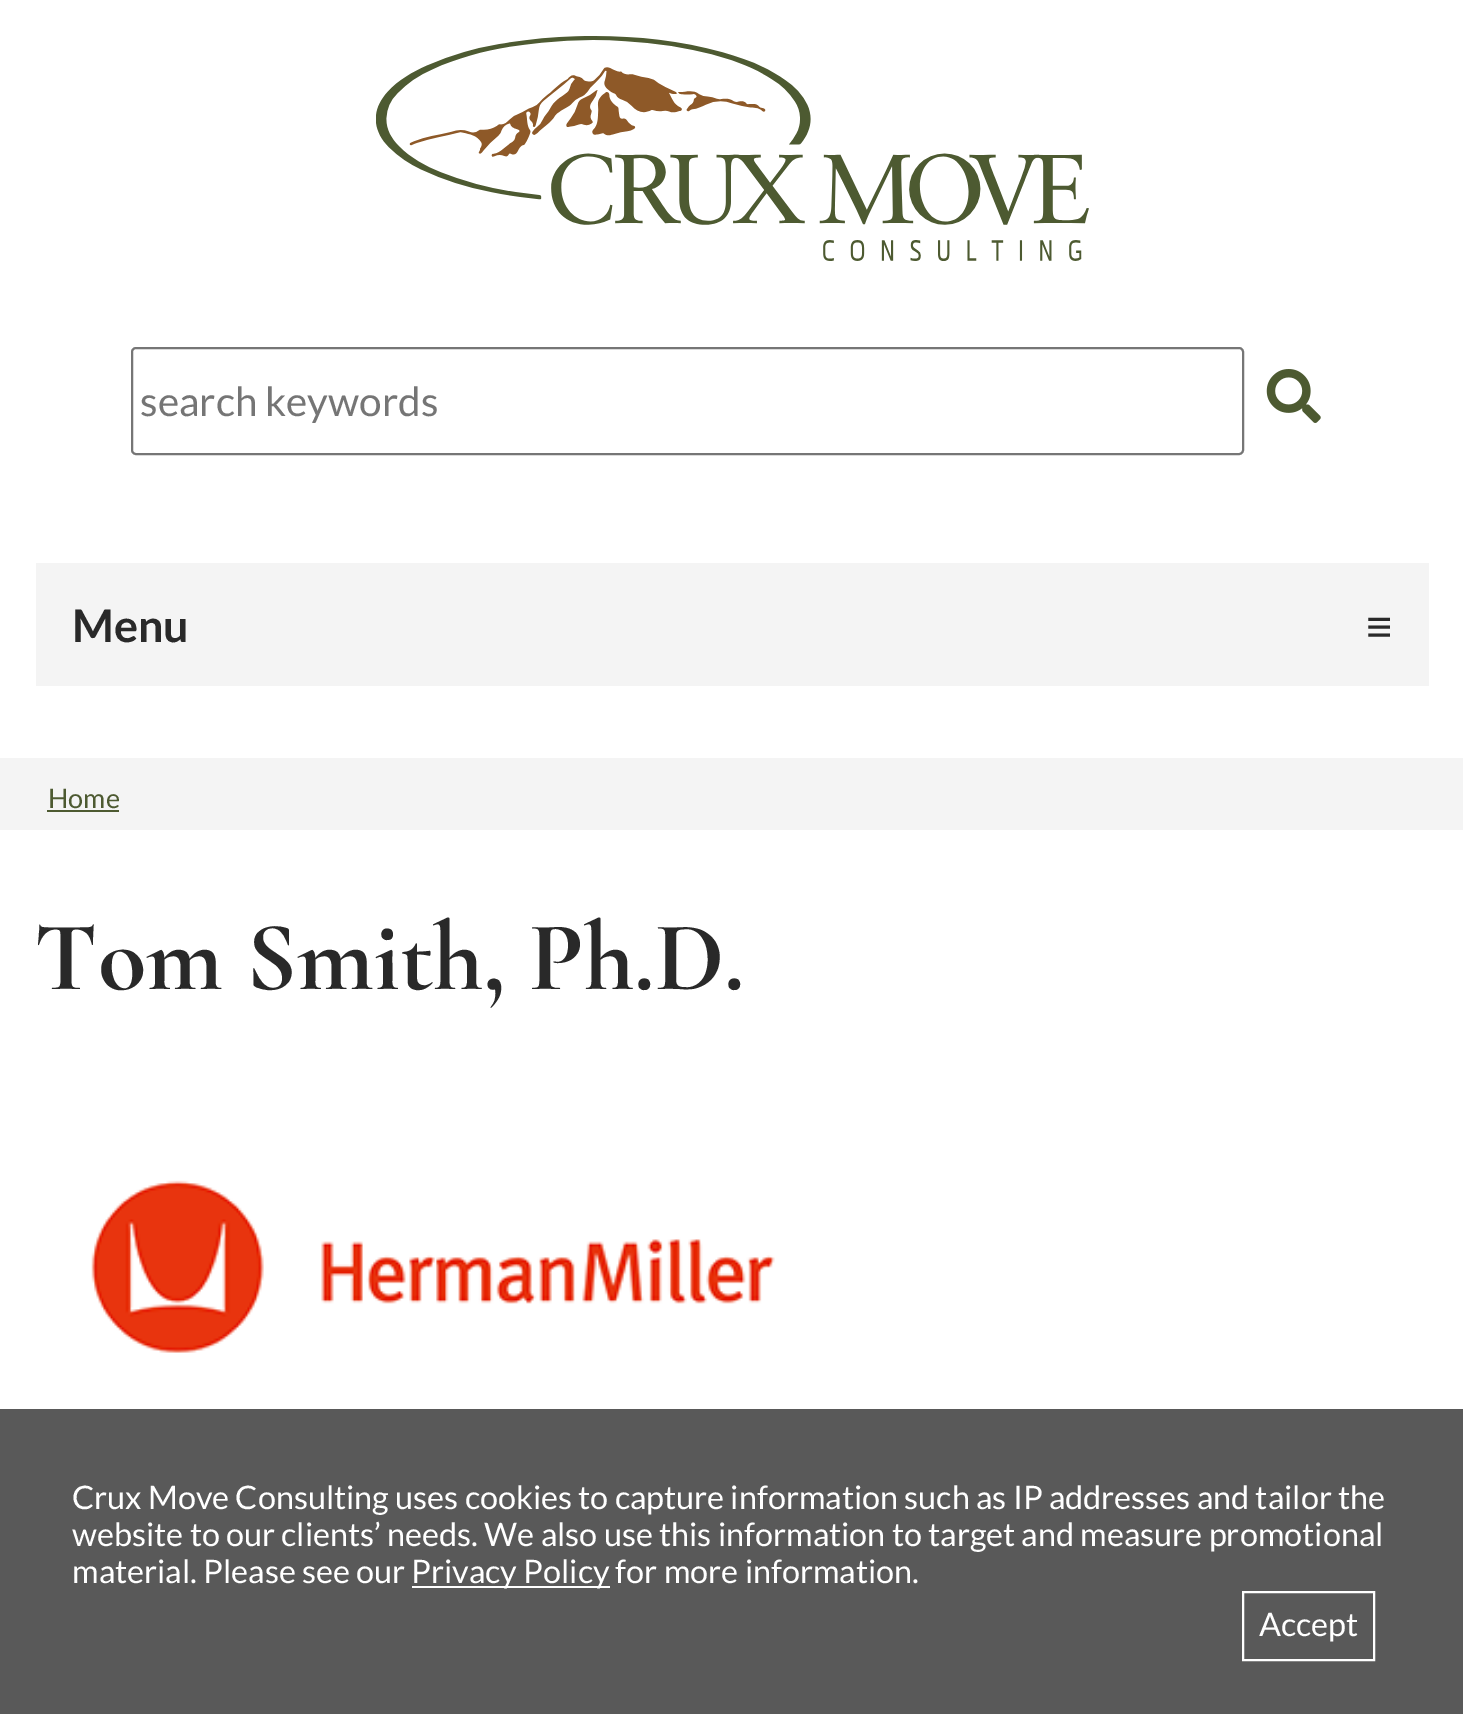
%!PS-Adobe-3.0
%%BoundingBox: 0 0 1463 1714
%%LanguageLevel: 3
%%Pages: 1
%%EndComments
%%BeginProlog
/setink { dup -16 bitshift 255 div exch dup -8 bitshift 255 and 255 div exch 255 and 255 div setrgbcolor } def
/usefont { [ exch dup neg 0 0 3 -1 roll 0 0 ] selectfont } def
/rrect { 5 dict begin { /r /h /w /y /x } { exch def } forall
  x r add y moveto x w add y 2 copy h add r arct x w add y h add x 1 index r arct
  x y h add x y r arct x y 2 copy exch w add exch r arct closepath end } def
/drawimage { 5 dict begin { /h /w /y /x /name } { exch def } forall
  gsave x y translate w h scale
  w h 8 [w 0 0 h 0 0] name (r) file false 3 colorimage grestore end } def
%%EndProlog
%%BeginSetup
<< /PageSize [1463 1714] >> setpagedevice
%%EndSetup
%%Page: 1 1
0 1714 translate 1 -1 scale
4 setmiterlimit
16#FFFFFF setink
0 0 1463 1714 rectfill
(img1.raw) 376 36 713 225 drawimage
16#767676 setink
2 setlinewidth
132 348 1111 106 4 rrect stroke
/Lato-Regular 40.5 usefont
16#757575 setink
140 416 moveto (search keywords) show
(img2.raw) 1266 369 55 54 drawimage
16#F4F4F4 setink
36 563 1393 123 rectfill
/Lato-Bold 45 usefont
16#292929 setink
72 642 moveto (Menu) show
/LiberationSans-Bold 45 usefont
1366 642 moveto (≡) show
16#F4F4F4 setink
0 758 1463 72 rectfill
/Lato-Regular 27 usefont
16#4D5A31 setink
48 808 moveto (Home) show
47 810 72 2 rectfill
/CormorantGaramond-Bold 99 usefont
16#292929 setink
34 989 moveto (Tom Smith, Ph.D.) show
(img3.raw) 91 1180 684 173 drawimage
16#595959 setink
0 1409 1463 305 rectfill
/Lato-Regular 32.4 usefont
16#FFFFFF setink
[
    [(Crux Move Consulting uses cookies to capture information such as IP addresses and tailor the) 72 1509]
    [(website to our clients’ needs. We also use this information to target and measure promotional) 72 1546]
    [(material. Please see our) 72 1583]
] { aload pop moveto show } forall
412 1586 198 2 rectfill
411 1583 moveto (Privacy Policy for more information.) show
1243 1592 131 68 rectstroke
1259 1636 moveto (Accept) show
showpage
%%EOF
